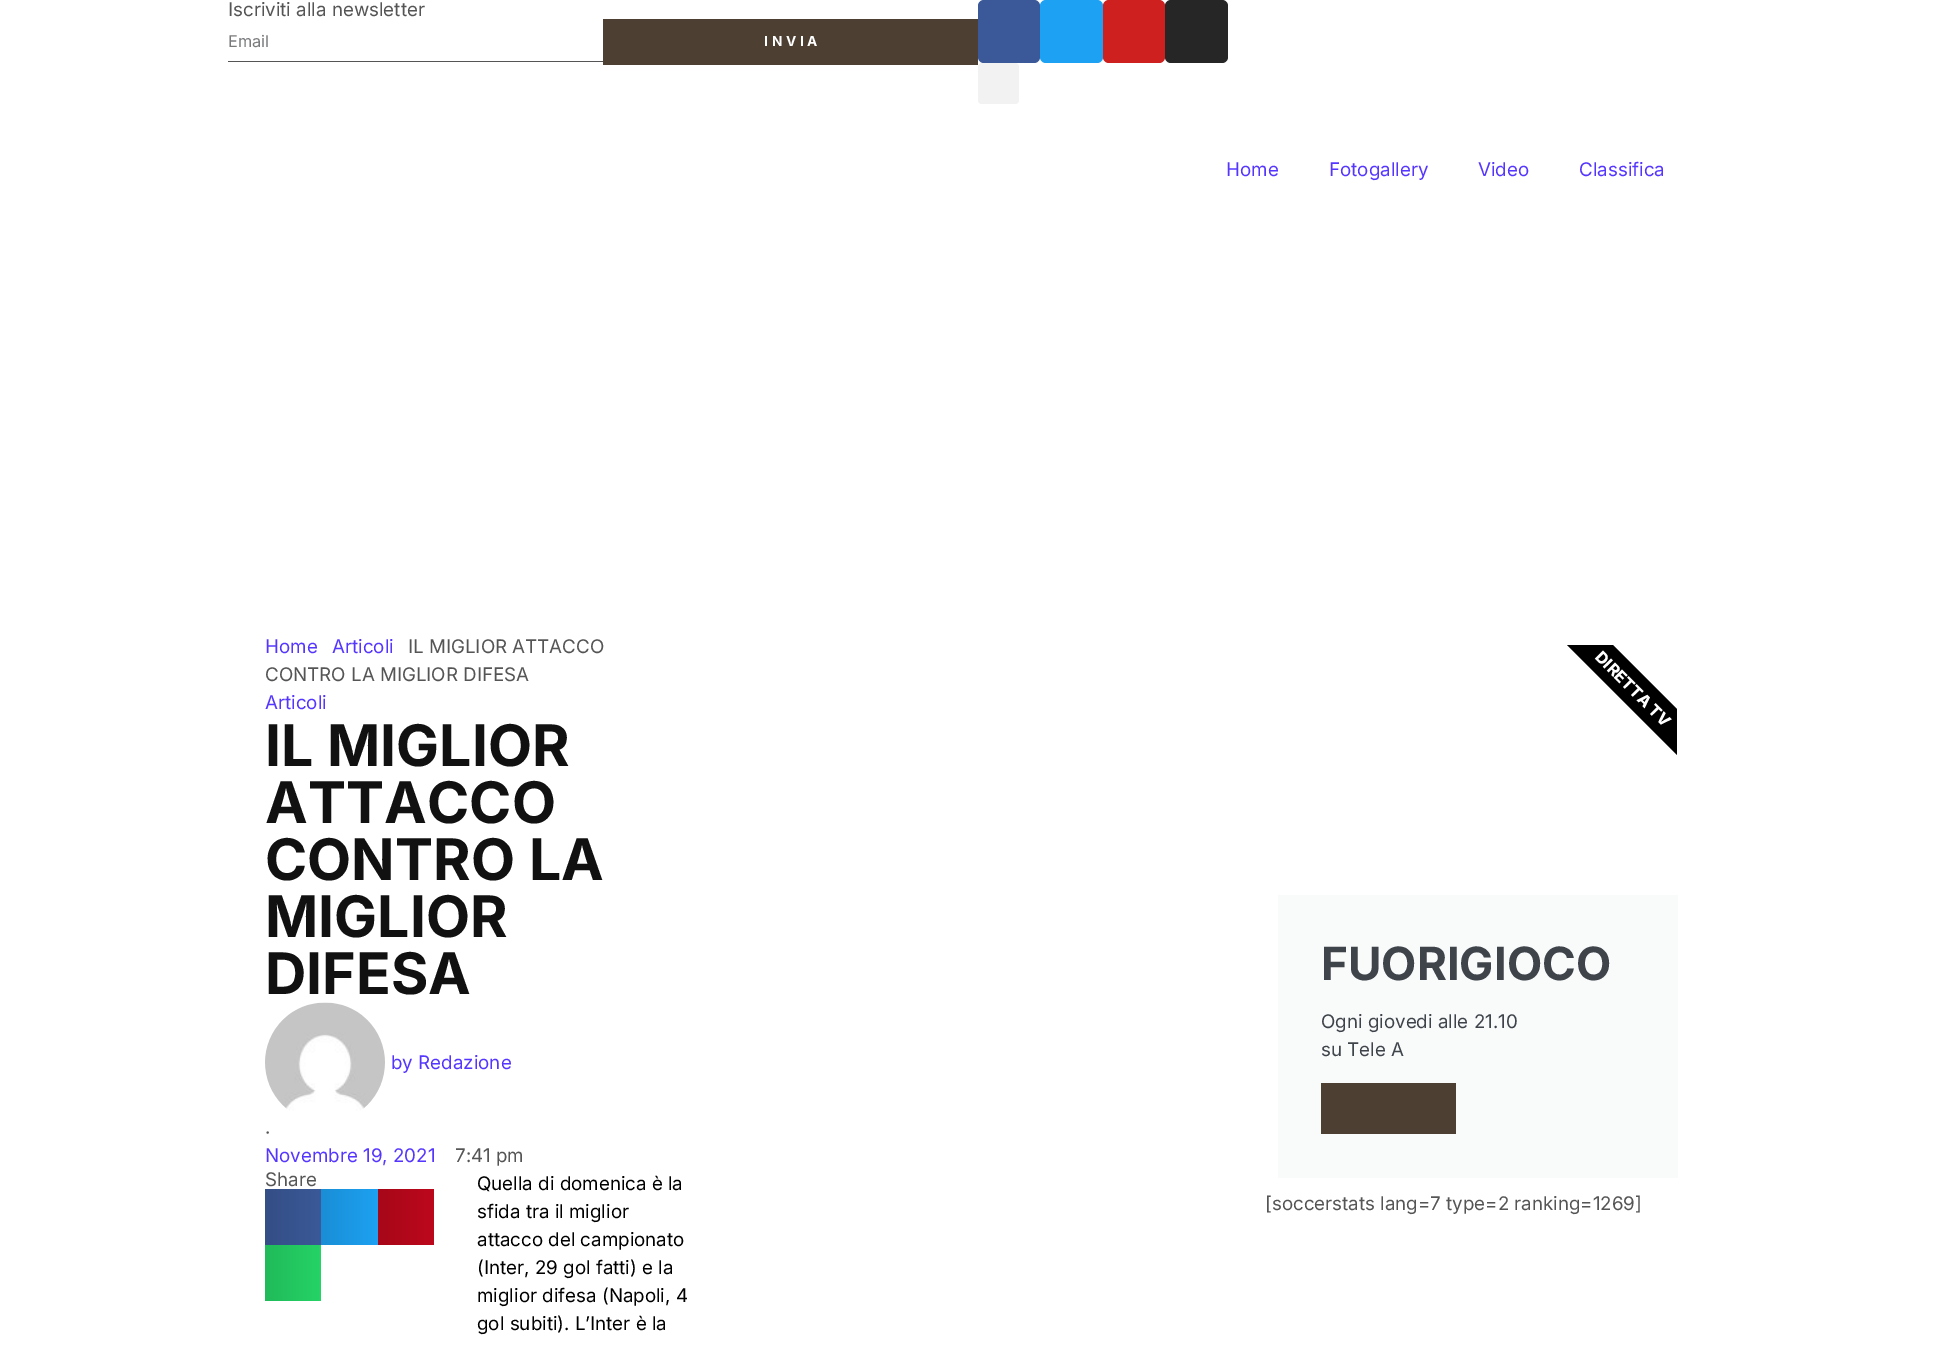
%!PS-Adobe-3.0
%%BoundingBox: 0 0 1954 1350
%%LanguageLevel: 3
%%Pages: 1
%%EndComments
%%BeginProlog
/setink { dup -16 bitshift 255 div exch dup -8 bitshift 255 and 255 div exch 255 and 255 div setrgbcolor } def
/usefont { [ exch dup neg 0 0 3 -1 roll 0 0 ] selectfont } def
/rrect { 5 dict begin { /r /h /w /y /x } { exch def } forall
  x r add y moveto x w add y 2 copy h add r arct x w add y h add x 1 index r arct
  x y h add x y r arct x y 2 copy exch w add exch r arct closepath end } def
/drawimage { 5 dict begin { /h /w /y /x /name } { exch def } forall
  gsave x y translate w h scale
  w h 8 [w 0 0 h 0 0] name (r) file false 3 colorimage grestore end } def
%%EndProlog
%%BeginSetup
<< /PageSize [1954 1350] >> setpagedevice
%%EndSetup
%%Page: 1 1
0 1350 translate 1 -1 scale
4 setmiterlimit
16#FFFFFF setink
0 0 1954 1350 rectfill
/Inter-Regular 18.75 usefont
16#555555 setink
228 16 moveto (Iscriviti alla newsletter) show
228 61 375 1 rectfill
/Inter-Regular 16.25 usefont
16#797A7C setink
228 47 moveto (Email) show
16#4D3F31 setink
603 19 375 46 rectfill
/Inter-Bold 13.75 usefont
16#FFFFFF setink
764 46 moveto 3.75 0 (INVIA) ashow
16#3B5998 setink
978 0 62 63 6 rrect fill
16#1DA1F2 setink
1040 0 63 63 6 rrect fill
16#CD201F setink
1103 0 62 63 6 rrect fill
16#262626 setink
1165 0 63 63 6 rrect fill
16#F2F2F2 setink
978 63 41 41 4 rrect fill
/Inter-Regular 18.75 usefont
16#5436FF setink
[
    [(Home) 1226 176]
    [(Fotogallery) 1329 176]
    [(Video) 1478 176]
    [(Classifica) 1579 176]
    [(Home) 265 653]
    [(Articoli) 332 653]
] { aload pop moveto show } forall
16#555555 setink
408 653 moveto (IL MIGLIOR ATTACCO) show
265 681 moveto (CONTRO LA MIGLIOR DIFESA) show
16#5436FF setink
265 709 moveto (Articoli) show
/Inter-Bold 57.25 usefont
16#111111 setink
[
    [(IL MIGLIOR) 265 766]
    [(ATTACCO) 265 823]
    [(CONTRO LA) 265 880]
    [(MIGLIOR) 265 937]
    [(DIFESA) 265 994]
] { aload pop moveto show } forall
(img1.raw) 265 1002 120 109 drawimage
/Inter-Regular 18.75 usefont
16#5436FF setink
391 1069 moveto (by Redazione) show
16#555555 setink
265 1139 moveto (·) show
16#5436FF setink
265 1162 moveto (Novembre 19, 2021) show
16#555555 setink
455 1162 moveto (7:41 pm) show
265 1186 moveto (Share) show
gsave 265 1189 moveto 321 1189 lineto 321 1245 lineto 265 1245 lineto closepath clip newpath
<< /ShadingType 2 /ColorSpace /DeviceRGB /Coords [265 1217 321 1217] /Extend [true true] /Function << /FunctionType 2 /Domain [0 1] /C0 [0.204 0.306 0.525] /C1 [0.231 0.349 0.596] /N 1 >> >> shfill grestore
gsave 321 1189 moveto 378 1189 lineto 378 1245 lineto 321 1245 lineto closepath clip newpath
<< /ShadingType 2 /ColorSpace /DeviceRGB /Coords [321 1217 378 1217] /Extend [true true] /Function << /FunctionType 2 /Domain [0 1] /C0 [0.102 0.557 0.835] /C1 [0.114 0.631 0.949] /N 1 >> >> shfill grestore
gsave 378 1189 moveto 434 1189 lineto 434 1245 lineto 378 1245 lineto closepath clip newpath
<< /ShadingType 2 /ColorSpace /DeviceRGB /Coords [378 1217 434 1217] /Extend [true true] /Function << /FunctionType 2 /Domain [0 1] /C0 [0.651 0.027 0.098] /C1 [0.741 0.031 0.11] /N 1 >> >> shfill grestore
gsave 265 1245 moveto 321 1245 lineto 321 1301 lineto 265 1301 lineto closepath clip newpath
<< /ShadingType 2 /ColorSpace /DeviceRGB /Coords [265 1273 321 1273] /Extend [true true] /Function << /FunctionType 2 /Domain [0 1] /C0 [0.129 0.729 0.353] /C1 [0.145 0.827 0.4] /N 1 >> >> shfill grestore
16#000000 setink
[
    [(Quella di domenica è la) 477 1190]
    [(sfida tra il miglior) 477 1218]
    [(attacco del campionato) 477 1246]
    [(\(Inter, 29 gol fatti\) e la) 477 1274]
    [(miglior difesa \(Napoli, 4) 477 1302]
    [(gol subiti\). L’Inter è la) 477 1330]
] { aload pop moveto show } forall
1677 755 moveto 1567 645 lineto 1613 645 lineto 1677 709 lineto closepath fill
/Inter-ExtraBold 16.25 usefont
16#FFFFFF setink
gsave 1594 658 translate 45 rotate 0 0 moveto (DIRETTA TV) show grestore
16#F9FAFA setink
1278 895 400 283 rectfill
/Inter-Bold 45.75 usefont
16#3F444B setink
1321 980 moveto (FUORIGIOCO) show
/Inter-Regular 18.75 usefont
1321 1028 moveto (Ogni giovedi alle 21.10) show
1321 1056 moveto (su Tele A) show
16#4D3F31 setink
1321 1083 135 51 rectfill
16#555555 setink
1265 1210 moveto ([soccerstats lang=7 type=2 ranking=1269]) show
showpage
%%EOF
